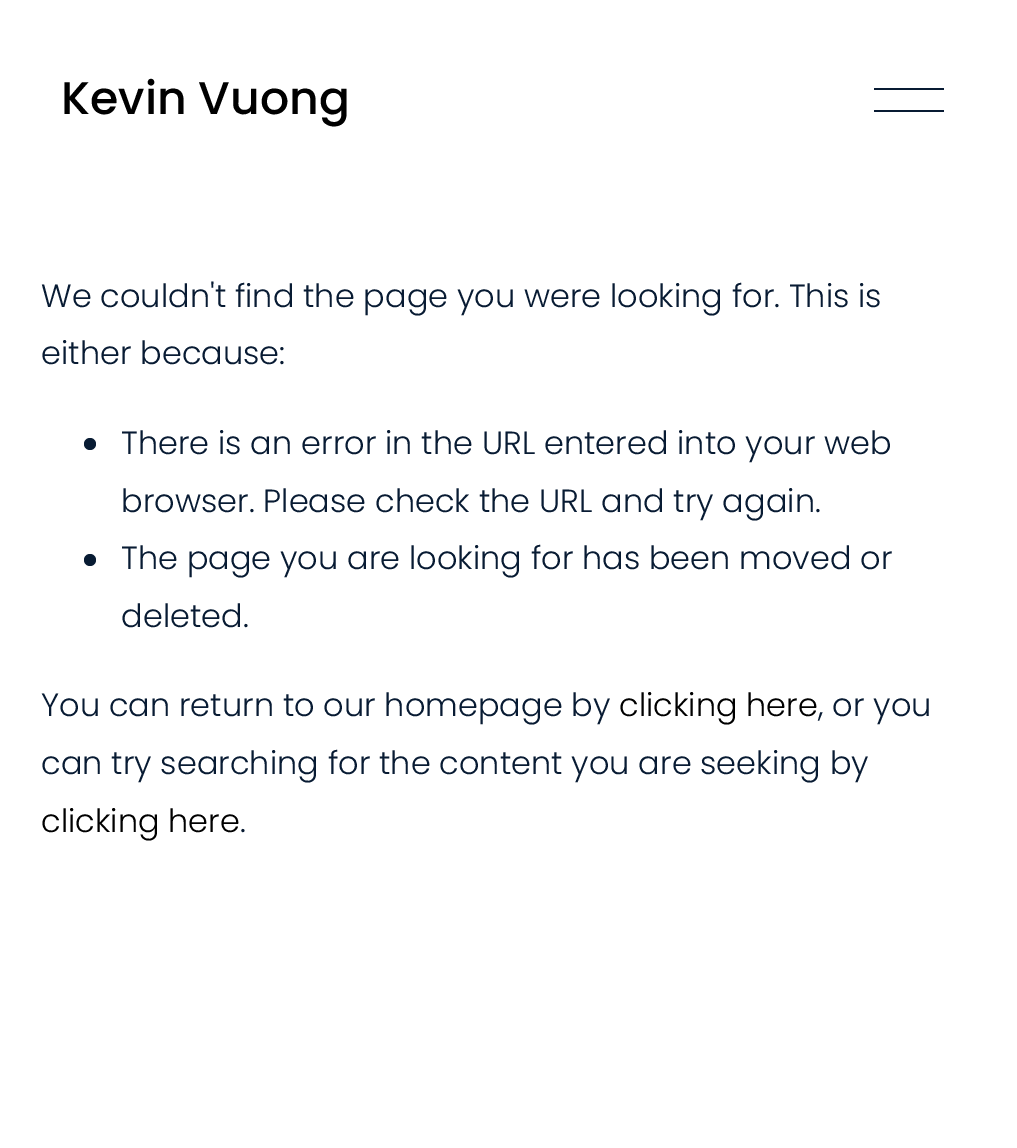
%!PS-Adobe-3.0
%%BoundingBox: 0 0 1017 1148
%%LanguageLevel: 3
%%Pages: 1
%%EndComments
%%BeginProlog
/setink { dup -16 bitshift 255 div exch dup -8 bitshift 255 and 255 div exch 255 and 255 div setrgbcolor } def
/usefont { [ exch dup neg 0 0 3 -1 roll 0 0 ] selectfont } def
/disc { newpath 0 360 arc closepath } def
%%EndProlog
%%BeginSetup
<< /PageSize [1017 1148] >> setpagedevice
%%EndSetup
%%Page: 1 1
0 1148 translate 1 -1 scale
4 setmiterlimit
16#FFFFFF setink
0 0 1017 1148 rectfill
/Poppins-Medium 45.75 usefont
16#000000 setink
61 114 moveto (Kevin Vuong) show
16#081B33 setink
874 88 70 2 rectfill
874 110 70 2 rectfill
/Poppins-Light 32 usefont
41 307 moveto (We couldn't find the page you were looking for. This is) show
41 364 moveto (either because:) show
90 444 6 disc fill
121 454 moveto (There is an error in the URL entered into your web) show
121 512 moveto (browser. Please check the URL and try again.) show
90 560 6 disc fill
[
    [(The page you are looking for has been moved or) 121 569]
    [(deleted.) 121 627]
    [(You can return to our homepage by) 41 716]
] { aload pop moveto show } forall
16#000000 setink
619 716 moveto (clicking here) show
16#081B33 setink
818 716 moveto (, or you) show
41 774 moveto (can try searching for the content you are seeking by) show
16#000000 setink
41 832 moveto (clicking here) show
16#081B33 setink
240 832 moveto (.) show
showpage
%%EOF
